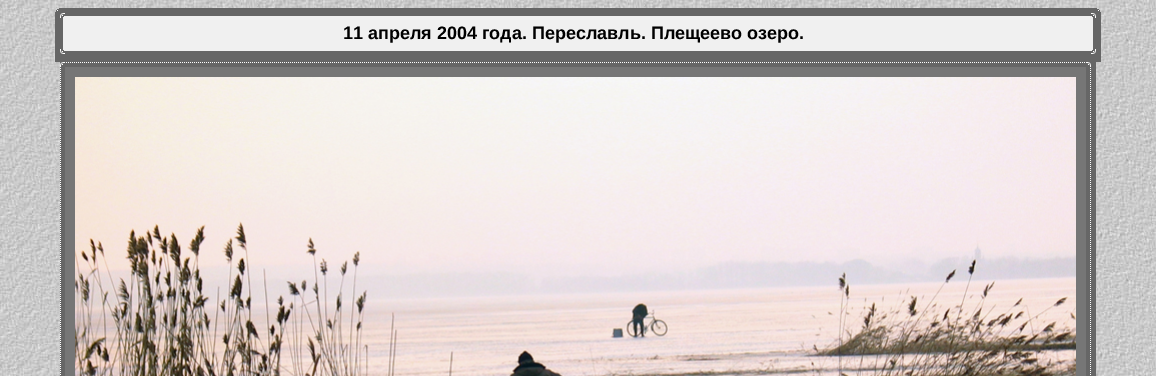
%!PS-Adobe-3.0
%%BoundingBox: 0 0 1156 376
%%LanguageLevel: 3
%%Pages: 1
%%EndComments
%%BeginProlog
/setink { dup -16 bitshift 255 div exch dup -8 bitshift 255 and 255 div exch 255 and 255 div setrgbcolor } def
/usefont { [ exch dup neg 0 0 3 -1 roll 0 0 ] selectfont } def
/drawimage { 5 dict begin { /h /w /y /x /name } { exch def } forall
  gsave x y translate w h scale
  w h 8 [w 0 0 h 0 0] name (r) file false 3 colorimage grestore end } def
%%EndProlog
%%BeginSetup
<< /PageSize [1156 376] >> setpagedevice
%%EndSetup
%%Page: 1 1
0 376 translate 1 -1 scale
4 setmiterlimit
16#FFFFFF setink
0 0 1156 376 rectfill
(img1.raw) 0 0 1156 376 drawimage
(img2.raw) 55 8 5 5 drawimage
16#666666 setink
60 8 1036 5 rectfill
(img3.raw) 1096 8 5 5 drawimage
55 13 1046 49 rectfill
16#F0F0F0 setink
60 16 1036 2 rectfill
(img4.raw) 60 13 5 5 drawimage
(img5.raw) 1091 13 5 5 drawimage
63 18 1030 31 rectfill
/LiberationSans-Bold 18 usefont
16#000000 setink
343 39 moveto (11 апреля 2004 года. Переславль. Плещеево озеро.) show
16#F0F0F0 setink
60 49 1036 2 rectfill
(img6.raw) 60 49 5 5 drawimage
(img7.raw) 1091 49 5 5 drawimage
16#666666 setink
60 62 1036 314 rectfill
(img8.raw) 60 62 5 5 drawimage
(img9.raw) 66 62 1019 1 drawimage
(img10.raw) 1086 62 5 5 drawimage
(img11.raw) 60 68 1 307 drawimage
16#767676 setink
65 67 1021 309 rectfill
(img12.raw) 75 77 1001 299 drawimage
(img11.raw) 1090 68 1 307 drawimage
showpage
%%EOF
